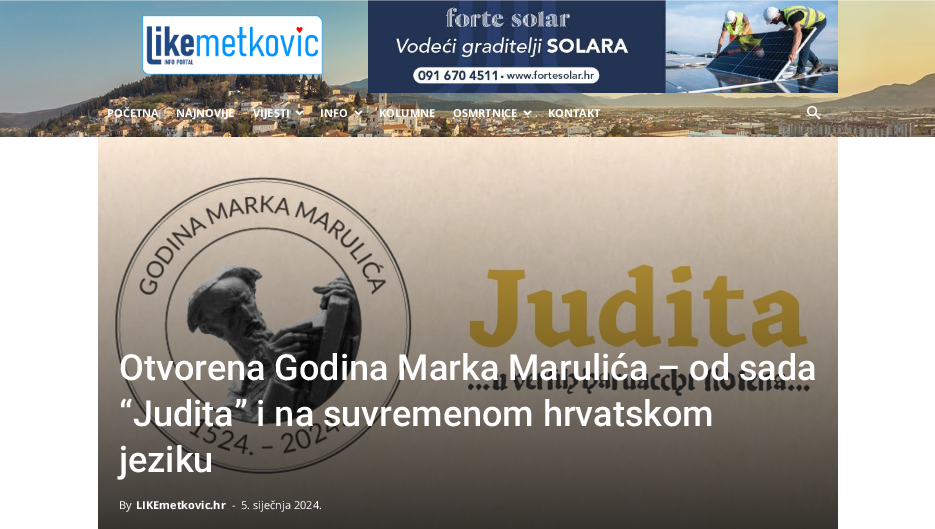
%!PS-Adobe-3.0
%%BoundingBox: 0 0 935 529
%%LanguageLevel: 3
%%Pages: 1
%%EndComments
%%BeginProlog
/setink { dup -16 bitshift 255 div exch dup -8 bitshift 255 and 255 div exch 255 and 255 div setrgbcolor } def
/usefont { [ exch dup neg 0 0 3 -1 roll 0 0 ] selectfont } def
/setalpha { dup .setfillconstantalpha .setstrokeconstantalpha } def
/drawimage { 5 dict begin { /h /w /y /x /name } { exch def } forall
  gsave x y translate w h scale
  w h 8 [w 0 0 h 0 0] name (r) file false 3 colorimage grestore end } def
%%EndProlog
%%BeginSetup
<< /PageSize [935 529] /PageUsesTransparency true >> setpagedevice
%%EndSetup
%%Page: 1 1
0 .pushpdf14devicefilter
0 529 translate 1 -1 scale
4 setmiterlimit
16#FFFFFF setink
0 0 935 529 rectfill
(img1.raw) 0 0 935 137 drawimage
(img3.raw) 368 0 470 93 drawimage
0.34 setalpha
0 0 935 1 rectfill
1 setalpha
(img2.raw) 142 15 181 60 drawimage
/OpenSans-Bold 11 usefont
[
    [(POČETNA) 107 117]
    [(NAJNOVIJE) 176 117]
    [(VIJESTI) 253 117]
] { aload pop moveto show } forall
(img4.raw) 295 110 9 6 drawimage
320 117 moveto (INFO) show
(img5.raw) 354 110 9 6 drawimage
379 117 moveto (KOLUMNE) show
453 117 moveto (OSMRTNICE) show
(img6.raw) 523 110 9 6 drawimage
548 117 moveto (KONTAKT) show
(img7.raw) 807 105 14 15 drawimage
(img8.raw) 98 137 740 392 drawimage
/Roboto-Medium 36 usefont
[
    [(Otvorena Godina Marka Marulića – od sada) 119 380]
    [(“Judita” i na suvremenom hrvatskom) 119 426]
    [(jeziku) 119 472]
] { aload pop moveto show } forall
/OpenSans-Regular 11 usefont
119 509 moveto (By) show
/OpenSans-Bold 11 usefont
136 509 moveto (LIKEmetkovic.hr) show
/OpenSans-Regular 11 usefont
232 509 moveto (-) show
241 509 moveto (5. siječnja 2024.) show
.poppdf14devicefilter showpage
%%EOF
